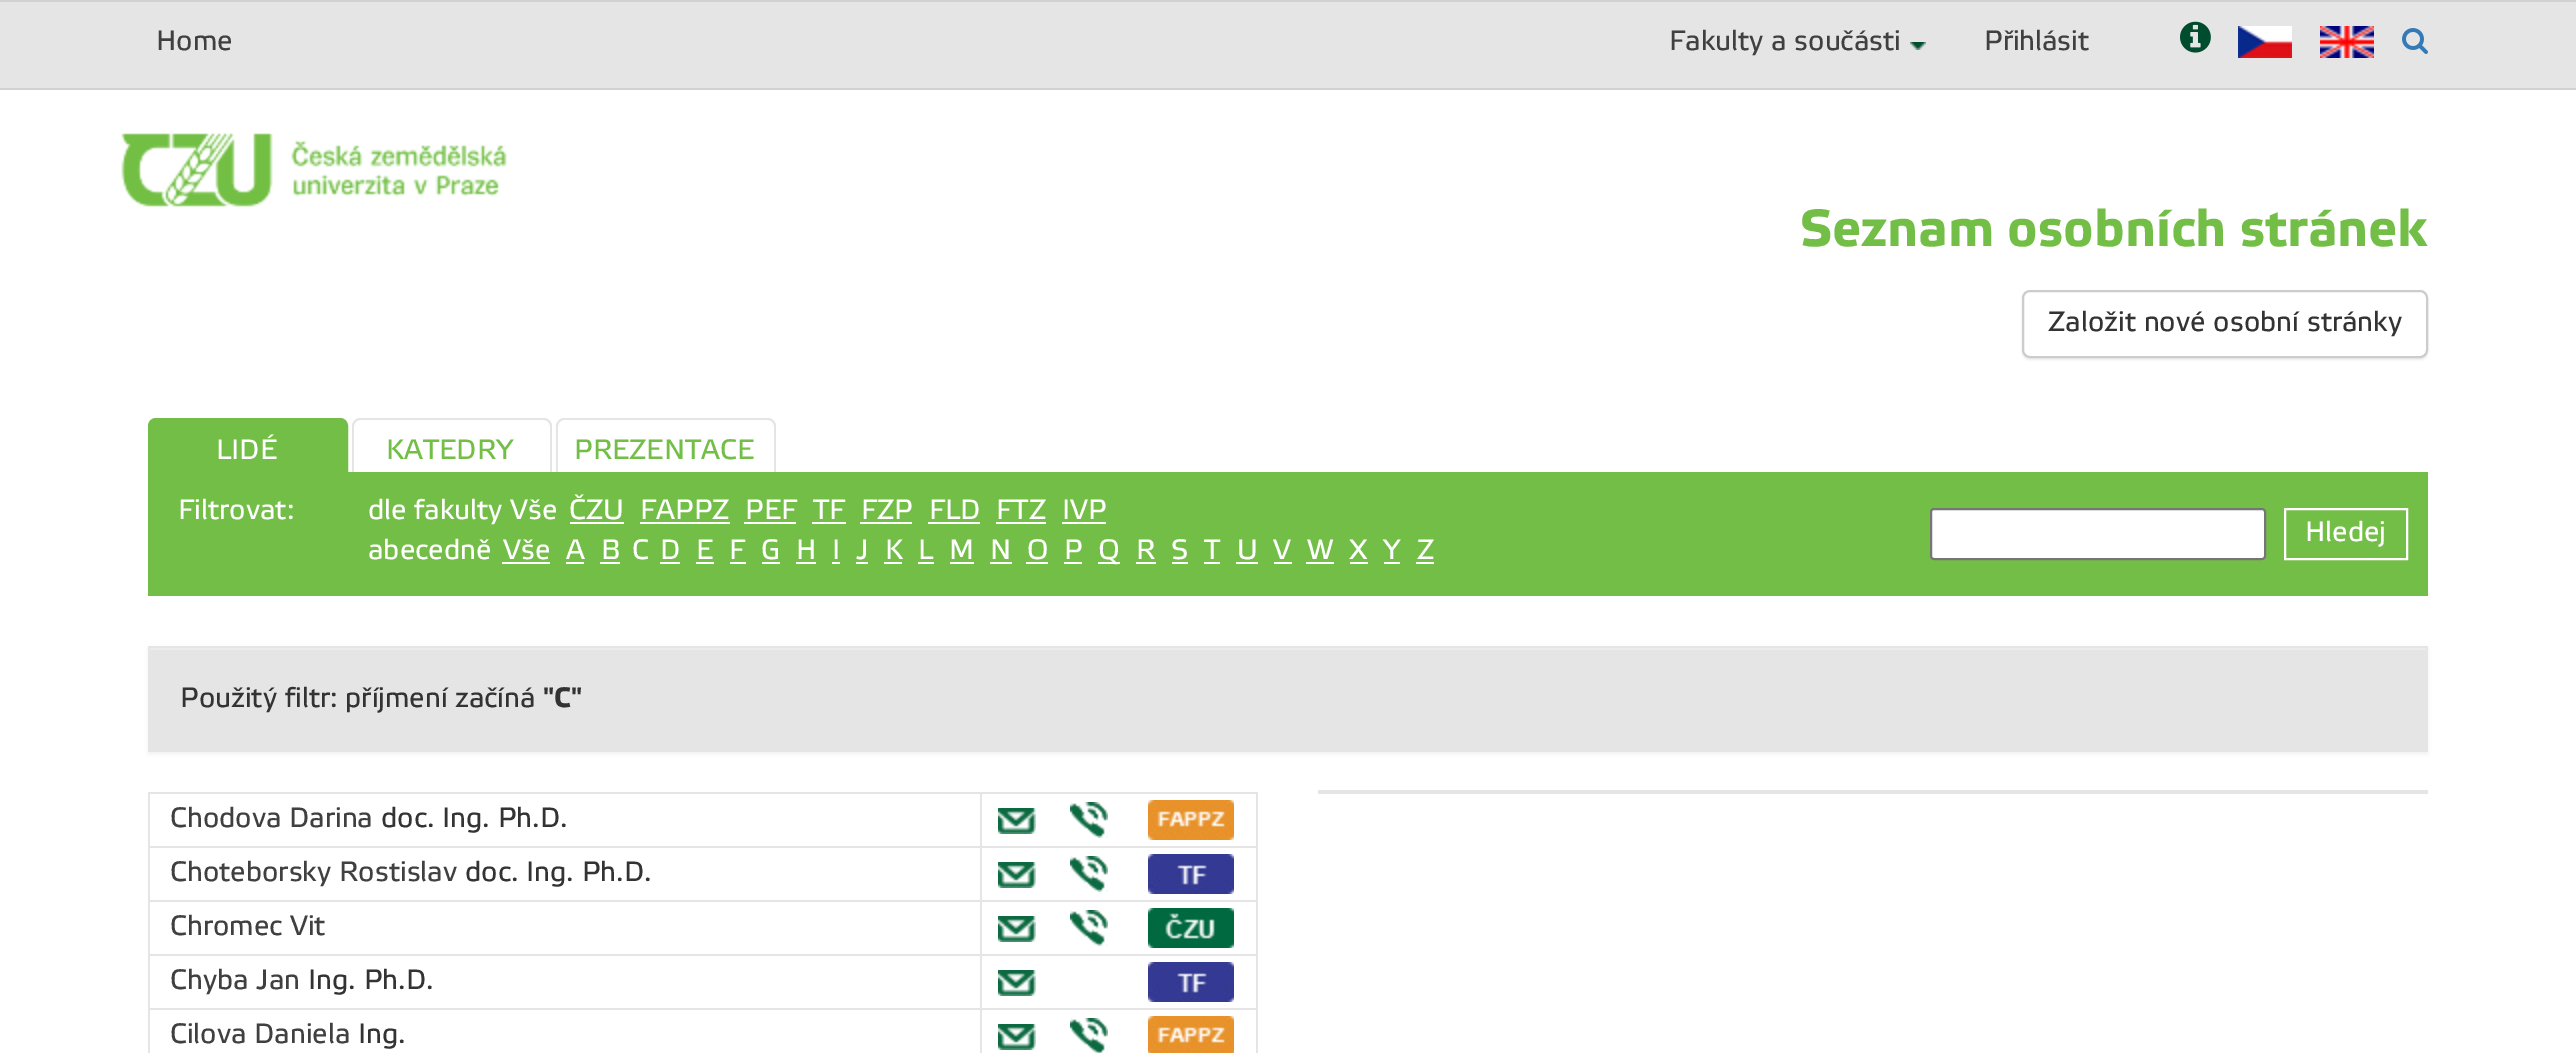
%!PS-Adobe-3.0
%%BoundingBox: 0 0 2576 1053
%%LanguageLevel: 3
%%Pages: 1
%%EndComments
%%BeginProlog
/setink { dup -16 bitshift 255 div exch dup -8 bitshift 255 and 255 div exch 255 and 255 div setrgbcolor } def
/usefont { [ exch dup neg 0 0 3 -1 roll 0 0 ] selectfont } def
/setalpha { dup .setfillconstantalpha .setstrokeconstantalpha } def
/rrect { 5 dict begin { /r /h /w /y /x } { exch def } forall
  x r add y moveto x w add y 2 copy h add r arct x w add y h add x 1 index r arct
  x y h add x y r arct x y 2 copy exch w add exch r arct closepath end } def
/softshadow { 12 dict begin { /a /b /q /h /w /y /x } { exch def } forall gsave /was 0 def
  9 -2 -9 { dup b mul 4 div /e exch def 1 sub .425 mul 2.718 exch exp 1 add a .99 .min exch div /now exch def
    1 1 now sub 1 was sub div sub setalpha /was now def
    w h .min e 2 mul add 0 gt { x e sub y e sub w e 2 mul add h e 2 mul add
      q e add b .6 mul add w h .min 2 div e add .min 0 .max rrect fill } if } for grestore end } def
/drawimage { 5 dict begin { /h /w /y /x /name } { exch def } forall
  gsave x y translate w h scale
  w h 8 [w 0 0 h 0 0] name (r) file false 3 colorimage grestore end } def
%%EndProlog
%%BeginSetup
<< /PageSize [2576 1053] /PageUsesTransparency true >> setpagedevice
%%EndSetup
%%Page: 1 1
0 .pushpdf14devicefilter
0 1053 translate 1 -1 scale
4 setmiterlimit
16#FFFFFF setink
0 0 2576 1053 rectfill
[
    [0 2 2576 86 16#E5E5E5]
    [0 0 2576 2 16#D1D1D1]
    [0 88 2576 2 16#D1D1D1]
] { aload pop setink rectfill } forall
/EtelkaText-Regular 28 usefont
16#404040 setink
156 50 moveto (Home) show
1669 50 moveto (Fakulty a součásti) show
(img1.raw) 1910 42 16 8 drawimage
1984 50 moveto (Přihlásit) show
(img2.raw) 2180 21 31 32 drawimage
(img3.raw) 2238 26 54 32 drawimage
(img4.raw) 2320 26 54 32 drawimage
(img5.raw) 2402 28 26 26 drawimage
(img6.raw) 121 133 386 74 drawimage
/EtelkaText-Bold 52 usefont
16#73BE46 setink
1800 246 moveto (Seznam osobních stránek) show
16#000000 setink
2022 292 406 68 8 1 0.07 softshadow
16#FFFFFF setink
2023 291 404 66 7 rrect gsave fill grestore
16#CCCCCC setink
2 setlinewidth
stroke
/EtelkaText-Regular 28 usefont
16#333333 setink
2048 331 moveto (Založit nové osobní stránky) show
16#73BE46 setink
148 472 2280 124 rectfill
156 419 moveto 340 419 lineto 344 419 347 422 347 426 curveto 347 473 lineto 149 473 lineto 149 426 lineto 149 422 152 419 156 419 curveto closepath gsave fill grestore
stroke
16#FFFFFF setink
216 459 moveto (LIDÉ) show
16#E5E5E5 setink
360 418 moveto 544 418 lineto 548 418 552 422 552 426 curveto 552 472 lineto 352 472 lineto 352 426 lineto 352 422 356 418 360 418 curveto closepath 360 420 moveto 544 420 lineto 547 420 550 423 550 426 curveto 550 472 lineto 354 472 lineto 354 426 lineto 354 423 357 420 360 420 curveto closepath eofill
16#73BE46 setink
386 459 moveto (KATEDRY) show
16#E5E5E5 setink
564 418 moveto 768 418 lineto 772 418 776 422 776 426 curveto 776 472 lineto 556 472 lineto 556 426 lineto 556 422 560 418 564 418 curveto closepath 564 420 moveto 768 420 lineto 771 420 774 423 774 426 curveto 774 472 lineto 558 472 lineto 558 426 lineto 558 423 561 420 564 420 curveto closepath eofill
16#73BE46 setink
574 459 moveto (PREZENTACE) show
16#FFFFFF setink
[
    [(Filtrovat:) 178 519]
    [(dle fakulty Vše) 368 519]
    [(ČZU) 569 519]
] { aload pop moveto show } forall
570 522 54 2 rectfill
640 519 moveto (FAPPZ) show
640 522 90 2 rectfill
745 519 moveto (PEF) show
744 522 52 2 rectfill
813 519 moveto (TF) show
812 522 34 2 rectfill
861 519 moveto (FZP) show
860 522 52 2 rectfill
929 519 moveto (FLD) show
928 522 52 2 rectfill
996 519 moveto (FTZ) show
996 522 50 2 rectfill
1062 519 moveto (IVP) show
1062 522 44 2 rectfill
368 559 moveto (abecedně) show
503 559 moveto (Vše) show
502 562 48 2 rectfill
566 559 moveto (A) show
566 562 18 2 rectfill
601 559 moveto (B) show
600 562 20 2 rectfill
632 559 moveto (C) show
660 559 moveto (D) show
660 562 20 2 rectfill
696 559 moveto (E) show
696 562 18 2 rectfill
729 559 moveto (F) show
730 562 16 2 rectfill
761 559 moveto (G) show
762 562 18 2 rectfill
796 559 moveto (H) show
796 562 20 2 rectfill
832 559 moveto (I) show
832 562 8 2 rectfill
856 559 moveto (J) show
856 562 12 2 rectfill
885 559 moveto (K) show
884 562 18 2 rectfill
918 559 moveto (L) show
918 562 16 2 rectfill
949 559 moveto (M) show
950 562 24 2 rectfill
990 559 moveto (N) show
990 562 22 2 rectfill
1027 559 moveto (O) show
1026 562 22 2 rectfill
1064 559 moveto (P) show
1064 562 18 2 rectfill
1098 562 22 2 rectfill
1098 559 moveto (Q) show
1136 559 moveto (R) show
1136 562 20 2 rectfill
1171 559 moveto (S) show
1172 562 16 2 rectfill
1204 559 moveto (T) show
1204 562 16 2 rectfill
1237 559 moveto (U) show
1236 562 22 2 rectfill
1273 559 moveto (V) show
1274 562 18 2 rectfill
1307 559 moveto (W) show
1306 562 28 2 rectfill
1349 559 moveto (X) show
1350 562 18 2 rectfill
1383 559 moveto (Y) show
1384 562 16 2 rectfill
1417 559 moveto (Z) show
1416 562 18 2 rectfill
1931 509 334 50 3 rrect gsave fill grestore
16#767676 setink
stroke
16#FFFFFF setink
2285 509 122 50 rectstroke
2305 541 moveto (Hledej) show
16#000000 setink
148 648 2280 106 0 2 0.05 softshadow
16#E5E5E5 setink
148 646 2280 106 rectfill
16#ECECEC setink
150 648 2276 2 rectfill
16#333333 setink
180 707 moveto (Použitý filtr: příjmení začíná) show
/EtelkaText-Bold 28 usefont
543 707 moveto ("C") show
[
    [1318 790 1110 4 16#E5E5E5]
    [148 792 1110 2 16#E5E5E5]
    [1256 792 2 261 16#E5E5E5]
    [148 792 2 261 16#E5E5E5]
    [148 846 1110 2 16#E5E5E5]
] { aload pop setink rectfill } forall
/EtelkaText-Regular 28 usefont
16#404040 setink
170 827 moveto (Chodova Darina) show
16#333333 setink
381 827 moveto (doc. Ing. Ph.D.) show
(img7.raw) 998 808 38 26 drawimage
(img8.raw) 1070 802 38 36 drawimage
(img9.raw) 1148 800 86 40 drawimage
16#E5E5E5 setink
148 900 1110 2 rectfill
16#404040 setink
170 881 moveto (Choteborsky Rostislav) show
16#333333 setink
465 881 moveto (doc. Ing. Ph.D.) show
(img7.raw) 998 862 38 26 drawimage
(img8.raw) 1070 856 38 36 drawimage
(img10.raw) 1148 854 86 40 drawimage
16#E5E5E5 setink
148 954 1110 2 rectfill
16#404040 setink
170 935 moveto (Chromec Vit) show
(img7.raw) 998 916 38 26 drawimage
(img8.raw) 1070 910 38 36 drawimage
(img11.raw) 1148 908 86 40 drawimage
16#E5E5E5 setink
148 1008 1110 2 rectfill
16#404040 setink
170 989 moveto (Chyba Jan) show
16#333333 setink
308 989 moveto (Ing. Ph.D.) show
(img7.raw) 998 970 38 26 drawimage
(img10.raw) 1148 962 86 40 drawimage
16#E5E5E5 setink
980 792 2 261 rectfill
16#404040 setink
170 1043 moveto (Cilova Daniela) show
16#333333 setink
358 1043 moveto (Ing.) show
(img7.raw) 998 1024 38 26 drawimage
(img12.raw) 1070 1018 38 35 drawimage
(img13.raw) 1148 1016 86 37 drawimage
.poppdf14devicefilter showpage
%%EOF
